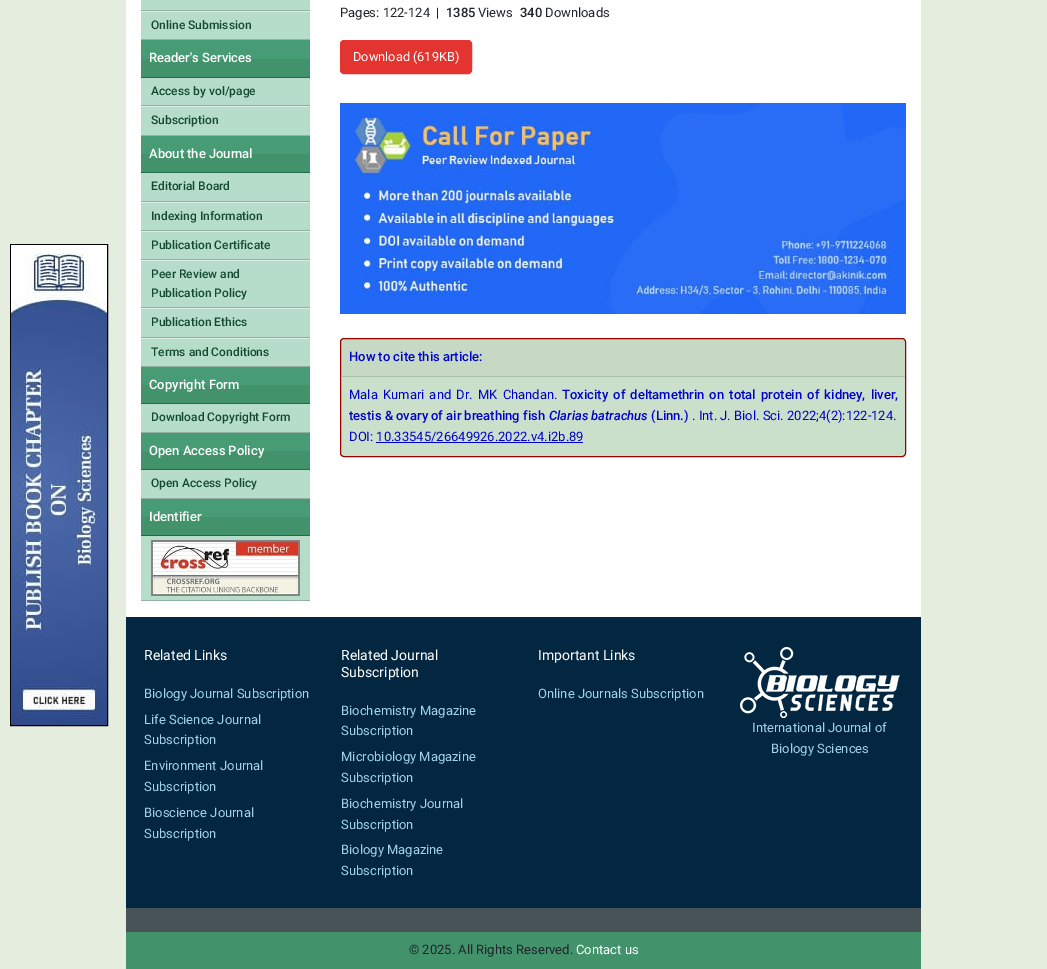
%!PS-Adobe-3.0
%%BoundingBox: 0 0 1047 969
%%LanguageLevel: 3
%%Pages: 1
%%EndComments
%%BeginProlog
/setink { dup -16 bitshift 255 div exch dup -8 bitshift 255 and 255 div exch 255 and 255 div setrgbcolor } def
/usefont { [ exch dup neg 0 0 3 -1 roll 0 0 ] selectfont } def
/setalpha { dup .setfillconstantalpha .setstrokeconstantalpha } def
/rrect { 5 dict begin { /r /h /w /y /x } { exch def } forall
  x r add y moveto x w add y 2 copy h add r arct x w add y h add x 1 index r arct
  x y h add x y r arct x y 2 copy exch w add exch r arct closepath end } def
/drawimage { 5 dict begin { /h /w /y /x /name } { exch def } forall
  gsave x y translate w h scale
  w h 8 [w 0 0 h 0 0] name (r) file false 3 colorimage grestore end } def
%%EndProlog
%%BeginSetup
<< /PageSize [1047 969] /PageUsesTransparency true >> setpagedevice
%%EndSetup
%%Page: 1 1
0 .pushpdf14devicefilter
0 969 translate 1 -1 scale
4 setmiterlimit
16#E5EDDE setink
0 0 1047 969 rectfill
16#000000 setink
10.5 244.5 97 481 rectstroke
(img1.raw) 11 245 96 480 drawimage
[
    [126 0 795 617 16#FFFFFF]
    [141 0 169 39 16#B6DDCA]
    [141 10 169 1 16#92B1A1]
    [141 11 169 1 16#DBEEE5]
    [141 39 169 1 16#92B1A1]
] { aload pop setink rectfill } forall
/Roboto-Medium 12 usefont
16#134A2F setink
151 29 moveto (Online Submission) show
[
    [141 40 169 19 16#479C75]
    [141 59 169 18 16#42926B]
    [141 77 169 1 16#236C48]
] { aload pop setink rectfill } forall
/Roboto-Medium 13 usefont
16#FFFFFF setink
149 62 moveto (Reader's Services) show
16#B6DDCA setink
141 78 169 57 rectfill
16#92B1A1 setink
141 105 169 1 rectfill
/Roboto-Medium 12 usefont
16#134A2F setink
151 95 moveto (Access by vol/page) show
16#DBEEE5 setink
141 106 169 1 rectfill
16#92B1A1 setink
141 135 169 1 rectfill
16#134A2F setink
151 124 moveto (Subscription) show
[
    [141 136 169 18 16#479C75]
    [141 154 169 18 16#42926B]
    [141 172 169 1 16#236C48]
] { aload pop setink rectfill } forall
/Roboto-Medium 13 usefont
16#FFFFFF setink
149 158 moveto (About the Journal) show
16#B6DDCA setink
141 173 169 193 rectfill
16#92B1A1 setink
141 201 169 1 rectfill
/Roboto-Medium 12 usefont
16#134A2F setink
151 190 moveto (Editorial Board) show
16#DBEEE5 setink
141 202 169 1 rectfill
16#92B1A1 setink
141 230 169 1 rectfill
16#134A2F setink
151 220 moveto (Indexing Information) show
16#DBEEE5 setink
141 231 169 1 rectfill
16#92B1A1 setink
141 259 169 1 rectfill
16#134A2F setink
151 249 moveto (Publication Certificate) show
16#DBEEE5 setink
141 260 169 1 rectfill
16#92B1A1 setink
141 307 169 1 rectfill
16#134A2F setink
151 278 moveto (Peer Review and) show
151 297 moveto (Publication Policy) show
16#DBEEE5 setink
141 308 169 1 rectfill
16#92B1A1 setink
141 337 169 1 rectfill
16#134A2F setink
151 326 moveto (Publication Ethics) show
16#DBEEE5 setink
141 338 169 1 rectfill
16#92B1A1 setink
141 366 169 1 rectfill
16#134A2F setink
151 356 moveto (Terms and Conditions) show
[
    [141 367 169 18 16#479C75]
    [141 385 169 18 16#42926B]
    [141 403 169 1 16#236C48]
] { aload pop setink rectfill } forall
/Roboto-Medium 13 usefont
16#FFFFFF setink
149 389 moveto (Copyright Form) show
16#B6DDCA setink
141 404 169 28 rectfill
16#92B1A1 setink
141 432 169 1 rectfill
/Roboto-Medium 12 usefont
16#134A2F setink
151 421 moveto (Download Copyright Form) show
[
    [141 433 169 18 16#479C75]
    [141 451 169 18 16#42926B]
    [141 469 169 1 16#236C48]
] { aload pop setink rectfill } forall
/Roboto-Medium 13 usefont
16#FFFFFF setink
149 455 moveto (Open Access Policy) show
16#B6DDCA setink
141 470 169 28 rectfill
16#92B1A1 setink
141 498 169 1 rectfill
/Roboto-Medium 12 usefont
16#134A2F setink
151 487 moveto (Open Access Policy) show
[
    [141 499 169 18 16#479C75]
    [141 517 169 18 16#42926B]
    [141 535 169 1 16#236C48]
] { aload pop setink rectfill } forall
/Roboto-Medium 13 usefont
16#FFFFFF setink
149 521 moveto (Identifier) show
16#B6DDCA setink
141 536 169 64 rectfill
16#92B1A1 setink
141 600 169 1 rectfill
(img2.raw) 151 540 149 56 drawimage
/Roboto-Regular 13 usefont
16#212529 setink
340 17 moveto (Pages: 122-124  |) show
/Roboto-Medium 13 usefont
446 17 moveto (1385) show
/Roboto-Regular 13 usefont
478 17 moveto (Views) show
/Roboto-Medium 13 usefont
520 17 moveto (340) show
/Roboto-Regular 13 usefont
545 17 moveto (Downloads) show
16#E3342F setink
340.5 40.5 131 33 3.5 rrect gsave fill grestore
stroke
/Roboto-Regular 12.75 usefont
16#FFFFFF setink
353 61 moveto (Download \(619KB\)) show
(img3.raw) 340 103 566 211 drawimage
16#CBE0CB setink
340.5 338.5 565 118 3.5 rrect gsave fill grestore
16#990000 setink
stroke
0.03 setalpha
16#000000 setink
341 339 564 37 rectfill
1 setalpha
16#ACBEAC setink
341 376 564 1 rectfill
/Roboto-Medium 13 usefont
16#0000CC setink
349 361 moveto (How to cite this article:) show
/Roboto-Regular 13 usefont
349 399 moveto 2 0 32 (Mala Kumari and Dr. MK Chandan.) widthshow
/Roboto-Medium 13 usefont
562 399 moveto 2 0 32 (Toxicity of deltamethrin on total protein of kidney, liver,) widthshow
349 420 moveto (testis & ovary of air breathing fish) show
/Roboto-MediumItalic 13 usefont
549 420 moveto (Clarias batrachus) show
/Roboto-Medium 13 usefont
651 420 moveto (\(Linn.\)) show
/Roboto-Regular 13 usefont
692 420 moveto (. Int. J. Biol. Sci. 2022;4\(2\):122-124.) show
349 441 moveto (DOI: 10.33545/26649926.2022.v4.i2b.89) show
376 442 207 1 rectfill
16#032741 setink
126 617 795 291 rectfill
/Roboto-Regular 14 usefont
16#FFFFFF setink
144 660 moveto (Related Links) show
/Roboto-Regular 13 usefont
16#A2D1EA setink
[
    [(Biology Journal Subscription) 144 698]
    [(Life Science Journal) 144 724]
    [(Subscription) 144 744]
    [(Environment Journal) 144 770]
    [(Subscription) 144 791]
    [(Bioscience Journal) 144 817]
    [(Subscription) 144 838]
] { aload pop moveto show } forall
/Roboto-Regular 14 usefont
16#FFFFFF setink
341 660 moveto (Related Journal) show
341 677 moveto (Subscription) show
/Roboto-Regular 13 usefont
16#A2D1EA setink
[
    [(Biochemistry Magazine) 341 715]
    [(Subscription) 341 735]
    [(Microbiology Magazine) 341 761]
    [(Subscription) 341 782]
    [(Biochemistry Journal) 341 808]
    [(Subscription) 341 829]
    [(Biology Magazine) 341 854]
    [(Subscription) 341 875]
] { aload pop moveto show } forall
/Roboto-Regular 14 usefont
16#FFFFFF setink
538 660 moveto (Important Links) show
/Roboto-Regular 13 usefont
16#A2D1EA setink
538 698 moveto (Online Journals Subscription) show
(img4.raw) 740 647 160 71 drawimage
752 732 moveto (International Journal of) show
771 753 moveto (Biology Sciences) show
16#475356 setink
126 908 795 24 rectfill
16#42926B setink
126 932 795 37 rectfill
16#212529 setink
409 954 moveto (© 2025. All Rights Reserved.) show
16#FFFFFF setink
576 954 moveto (Contact us) show
.poppdf14devicefilter showpage
%%EOF
